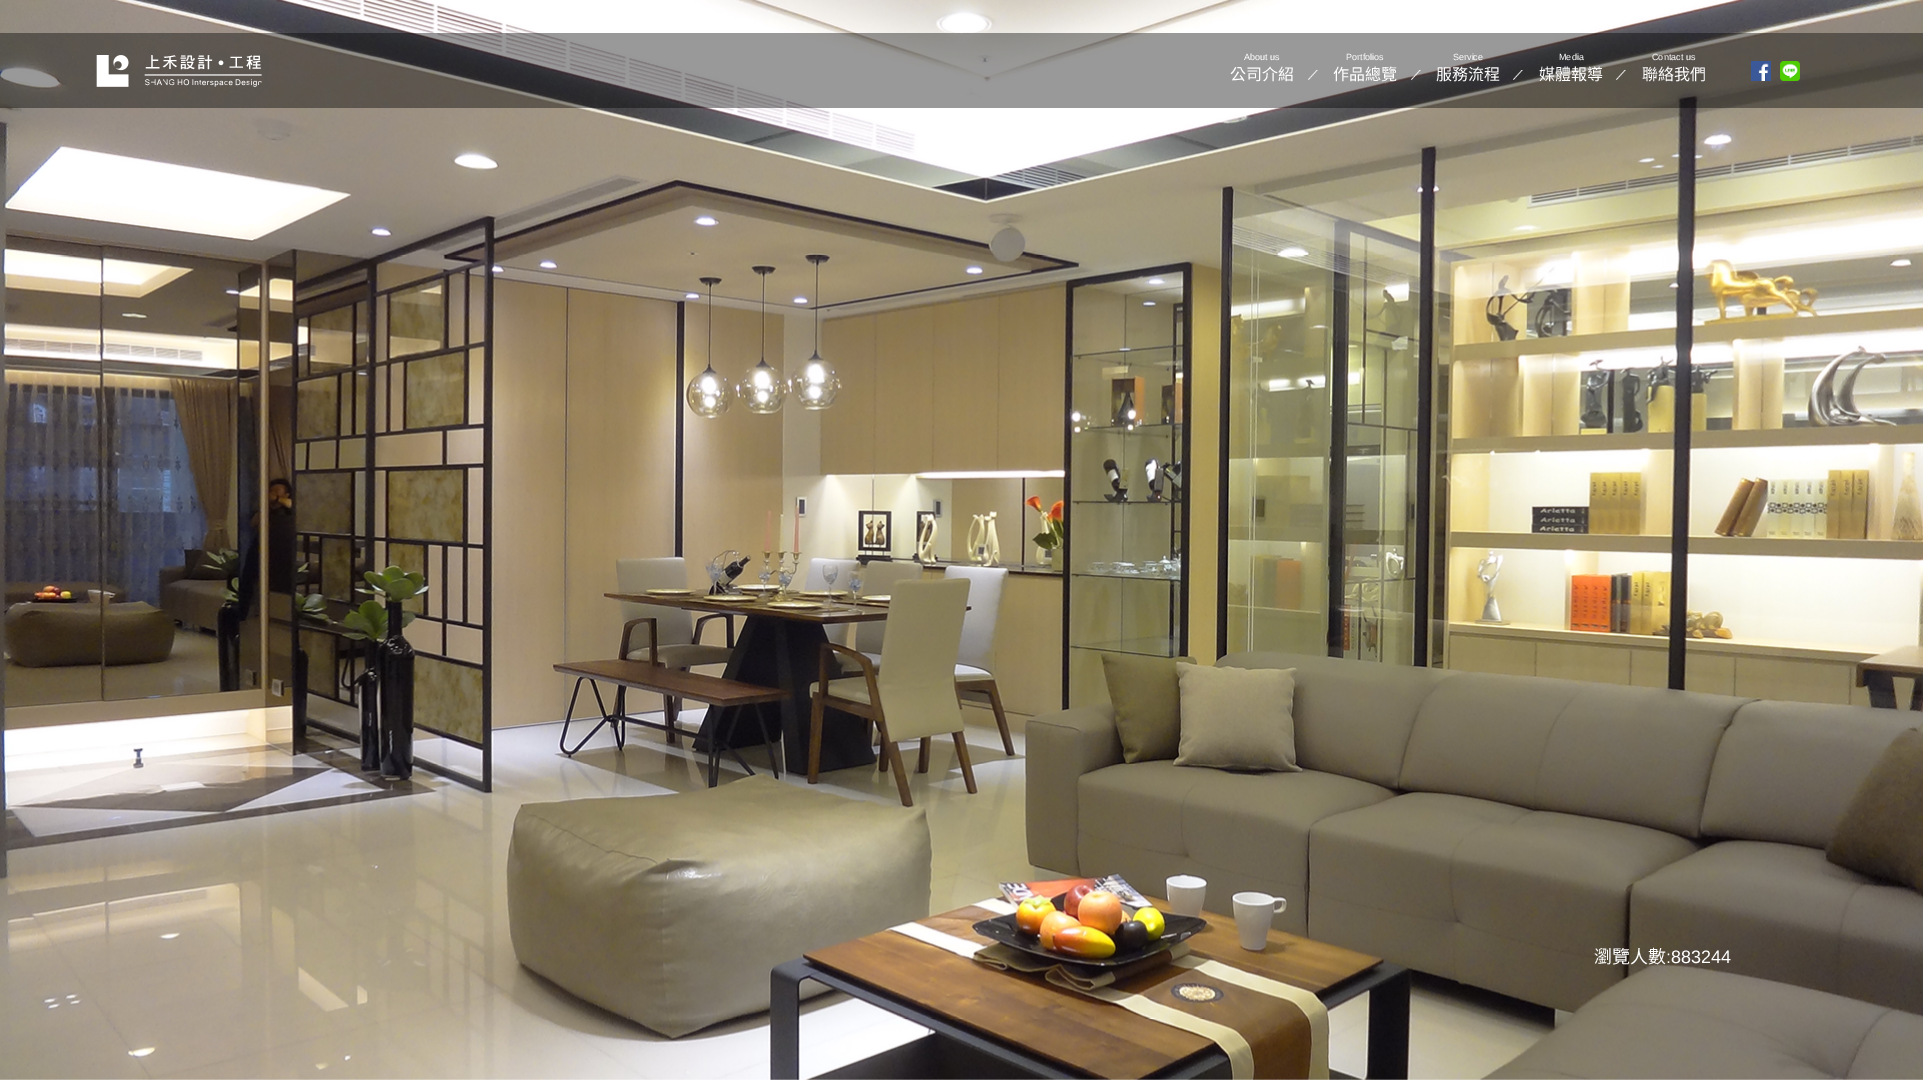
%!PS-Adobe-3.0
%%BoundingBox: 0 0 1923 1080
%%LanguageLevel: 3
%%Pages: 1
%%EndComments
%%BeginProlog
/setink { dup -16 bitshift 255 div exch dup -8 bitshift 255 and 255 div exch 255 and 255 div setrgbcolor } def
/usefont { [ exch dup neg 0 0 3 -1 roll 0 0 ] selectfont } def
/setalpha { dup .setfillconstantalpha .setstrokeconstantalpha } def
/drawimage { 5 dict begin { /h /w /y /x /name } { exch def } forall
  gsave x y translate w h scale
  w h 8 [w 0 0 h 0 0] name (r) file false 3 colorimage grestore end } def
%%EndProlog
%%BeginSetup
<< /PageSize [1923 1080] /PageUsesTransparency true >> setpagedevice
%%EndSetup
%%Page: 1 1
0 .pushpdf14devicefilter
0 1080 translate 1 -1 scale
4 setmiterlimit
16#FFFFFF setink
0 0 1923 1080 rectfill
(img8.raw) 0 0 1923 1080 drawimage
0.4 setalpha
16#000000 setink
0 33 1923 75 rectfill
1 setalpha
(img1.raw) 96 55 166 32 drawimage
/LiberationSans-Regular 9 usefont
16#FFFFFF setink
1244 60 moveto (About us) show
/NotoSansCJKTC-Regular 16 usefont
1230 80 moveto (公司介紹) show
(img2.raw) 1308 70 10 10 drawimage
/LiberationSans-Regular 9 usefont
1346 60 moveto (Portfolios) show
/NotoSansCJKTC-Regular 16 usefont
1333 80 moveto (作品總覽) show
(img3.raw) 1411 70 10 10 drawimage
/LiberationSans-Regular 9 usefont
1453 60 moveto (Service) show
/NotoSansCJKTC-Regular 16 usefont
1436 80 moveto (服務流程) show
(img4.raw) 1513 70 10 10 drawimage
/LiberationSans-Regular 9 usefont
1559 60 moveto (Media) show
/NotoSansCJKTC-Regular 16 usefont
1539 80 moveto (媒體報導) show
(img5.raw) 1616 70 10 10 drawimage
/LiberationSans-Regular 9 usefont
1652 60 moveto (Contact us) show
/NotoSansCJKTC-Regular 16 usefont
1642 80 moveto (聯絡我們) show
(img6.raw) 1751 61 20 20 drawimage
(img7.raw) 1780 61 20 20 drawimage
/NotoSansCJKTC-Regular 18 usefont
1594 963 moveto (瀏覽人數) show
/LiberationSans-Regular 18 usefont
1666 963 moveto (:883244) show
.poppdf14devicefilter showpage
%%EOF
